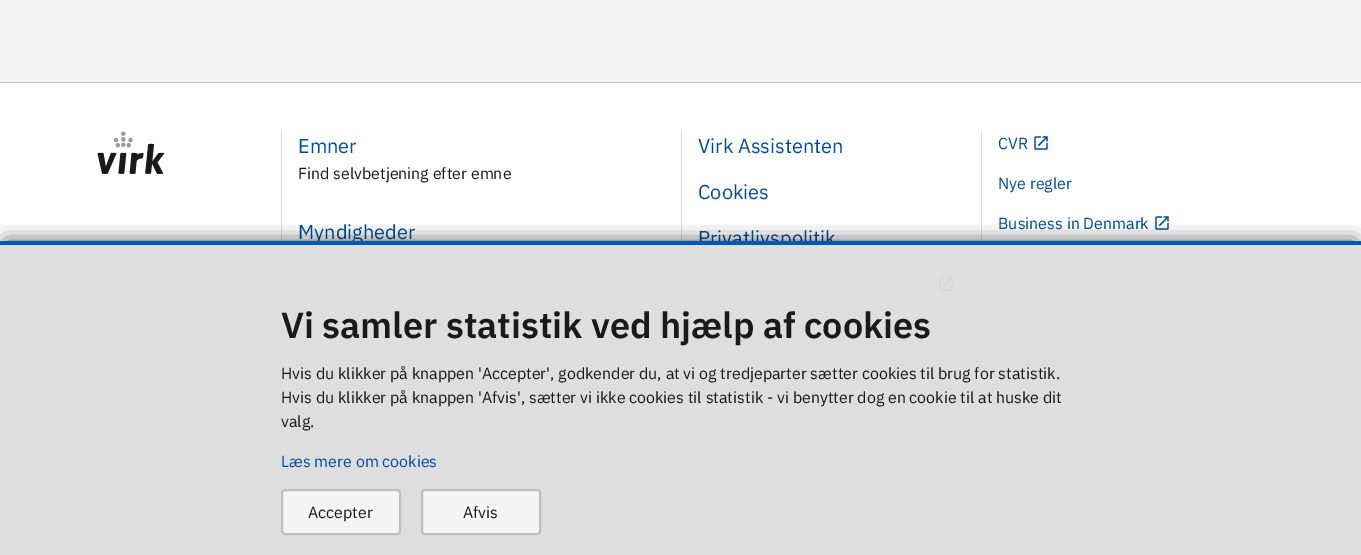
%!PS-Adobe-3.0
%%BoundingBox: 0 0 1361 555
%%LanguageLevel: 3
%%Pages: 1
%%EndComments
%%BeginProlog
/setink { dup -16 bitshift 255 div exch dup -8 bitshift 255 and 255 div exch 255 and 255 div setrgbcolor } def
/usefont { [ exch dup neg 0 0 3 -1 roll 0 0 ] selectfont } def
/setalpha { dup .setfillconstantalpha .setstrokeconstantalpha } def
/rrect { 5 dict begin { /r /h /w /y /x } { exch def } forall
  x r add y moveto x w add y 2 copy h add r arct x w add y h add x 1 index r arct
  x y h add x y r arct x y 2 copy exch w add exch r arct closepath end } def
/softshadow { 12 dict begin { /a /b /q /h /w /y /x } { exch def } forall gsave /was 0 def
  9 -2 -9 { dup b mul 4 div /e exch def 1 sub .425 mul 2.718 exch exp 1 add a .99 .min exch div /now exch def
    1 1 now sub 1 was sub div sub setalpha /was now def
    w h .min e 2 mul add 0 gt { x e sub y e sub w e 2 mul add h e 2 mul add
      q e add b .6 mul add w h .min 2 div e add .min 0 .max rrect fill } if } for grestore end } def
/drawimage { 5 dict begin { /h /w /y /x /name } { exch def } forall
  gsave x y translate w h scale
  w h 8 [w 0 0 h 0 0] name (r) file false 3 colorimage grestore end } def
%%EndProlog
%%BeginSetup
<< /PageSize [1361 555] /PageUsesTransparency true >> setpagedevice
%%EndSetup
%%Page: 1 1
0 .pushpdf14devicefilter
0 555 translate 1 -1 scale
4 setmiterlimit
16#F5F5F5 setink
0 0 1361 555 rectfill
16#FFFFFF setink
0 83 1361 472 rectfill
16#BFBFBF setink
0 82 1361 1 rectfill
(img1.raw) 97 131 68 43 drawimage
16#DCDCDC setink
281 131 1 362 rectfill
/IBMPlexSans-Regular 20 usefont
16#004D99 setink
298 153 moveto (Emner) show
/IBMPlexSans-Regular 16 usefont
16#1A1A1A setink
298 179 moveto (Find selvbetjening efter emne) show
/IBMPlexSans-Regular 20 usefont
16#004D99 setink
298 239 moveto (Myndigheder) show
16#DCDCDC setink
681 131 1 376 rectfill
16#004D99 setink
[
    [(Virk Assistenten) 698 153]
    [(Cookies) 698 199]
    [(Privatlivspolitik) 698 245]
] { aload pop moveto show } forall
(img2.raw) 939 277 14 14 drawimage
16#DCDCDC setink
981 131 1 376 rectfill
/IBMPlexSans-Regular 16 usefont
16#004D99 setink
998 149 moveto (CVR) show
(img2.raw) 1034 136 14 14 drawimage
998 189 moveto (Nye regler) show
998 229 moveto (Business in Denmark) show
(img2.raw) 1155 216 14 14 drawimage
gsave
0 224 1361 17 rectclip
16#000000 setink
6 242 1349 302 0 9.5 0.75 softshadow
grestore
0.95 setalpha
16#DCDCDC setink
0 245 1361 310 rectfill
1 setalpha
16#0059B3 setink
0 241 1361 4 rectfill
/IBMPlexSans-SemiBold 36 usefont
16#1A1A1A setink
281 338 moveto (Vi samler statistik ved hjælp af cookies) show
/IBMPlexSans-Regular 16 usefont
[
    [(Hvis du klikker på knappen 'Accepter', godkender du, at vi og tredjeparter sætter cookies til brug for statistik.) 281 379]
    [(Hvis du klikker på knappen 'Afvis', sætter vi ikke cookies til statistik - vi benytter dog en cookie til at huske dit) 281 403]
    [(valg.) 281 427]
] { aload pop moveto show } forall
16#004D99 setink
281 467 moveto (Læs mere om cookies) show
16#F5F5F5 setink
282 490 118 44 3 rrect gsave fill grestore
16#BFBFBF setink
2 setlinewidth
stroke
16#1A1A1A setink
308 518 moveto (Accepter) show
16#F5F5F5 setink
422 490 118 44 3 rrect gsave fill grestore
16#BFBFBF setink
stroke
16#1A1A1A setink
463 518 moveto (Afvis) show
.poppdf14devicefilter showpage
%%EOF
